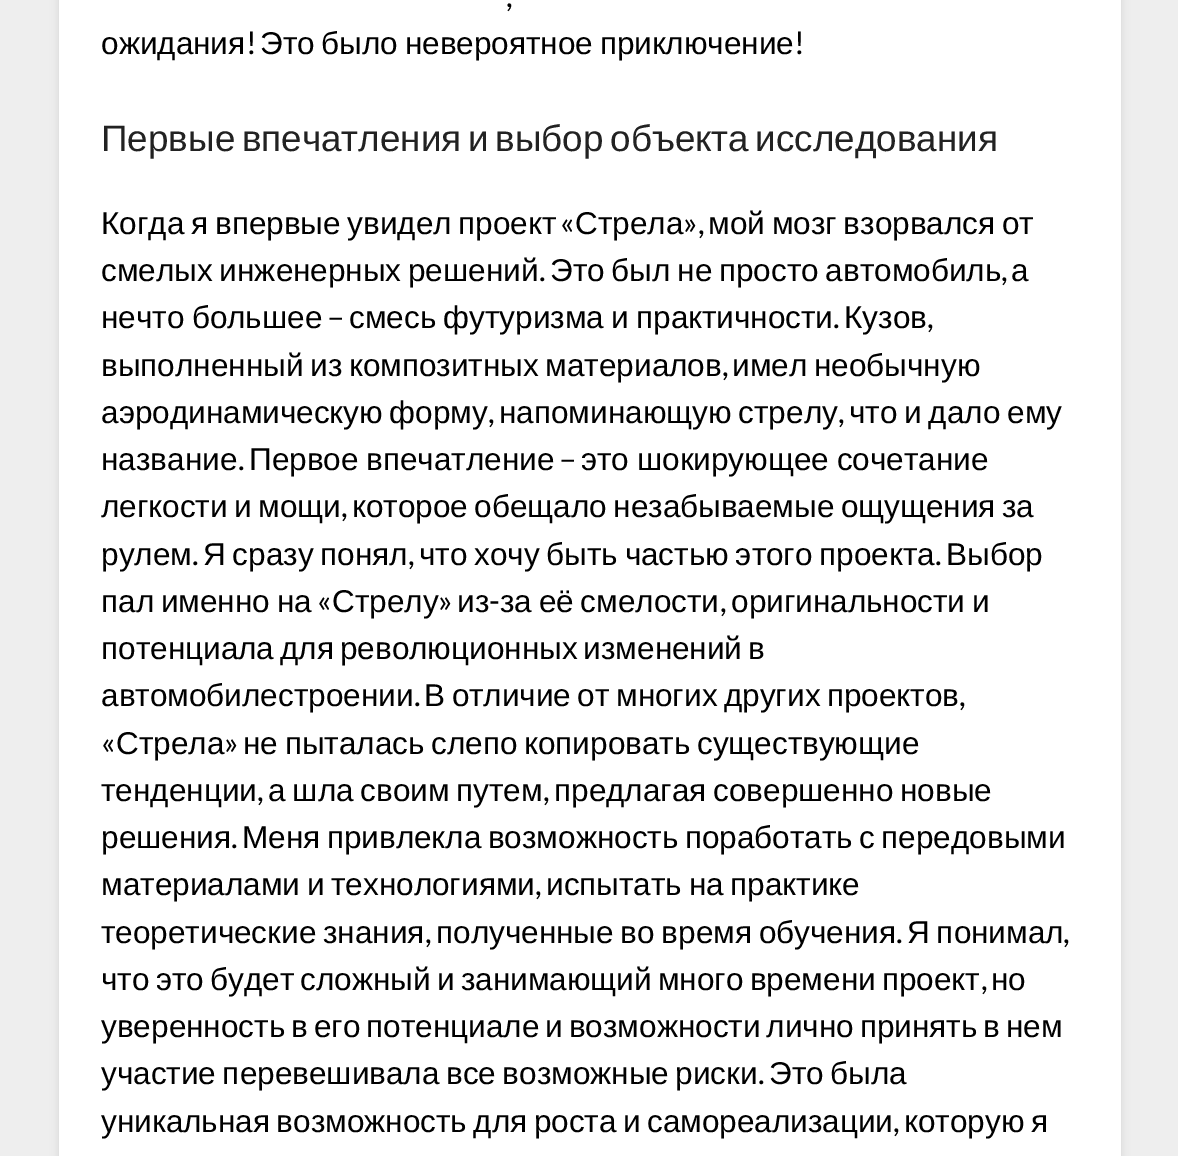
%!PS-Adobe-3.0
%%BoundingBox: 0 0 1178 1156
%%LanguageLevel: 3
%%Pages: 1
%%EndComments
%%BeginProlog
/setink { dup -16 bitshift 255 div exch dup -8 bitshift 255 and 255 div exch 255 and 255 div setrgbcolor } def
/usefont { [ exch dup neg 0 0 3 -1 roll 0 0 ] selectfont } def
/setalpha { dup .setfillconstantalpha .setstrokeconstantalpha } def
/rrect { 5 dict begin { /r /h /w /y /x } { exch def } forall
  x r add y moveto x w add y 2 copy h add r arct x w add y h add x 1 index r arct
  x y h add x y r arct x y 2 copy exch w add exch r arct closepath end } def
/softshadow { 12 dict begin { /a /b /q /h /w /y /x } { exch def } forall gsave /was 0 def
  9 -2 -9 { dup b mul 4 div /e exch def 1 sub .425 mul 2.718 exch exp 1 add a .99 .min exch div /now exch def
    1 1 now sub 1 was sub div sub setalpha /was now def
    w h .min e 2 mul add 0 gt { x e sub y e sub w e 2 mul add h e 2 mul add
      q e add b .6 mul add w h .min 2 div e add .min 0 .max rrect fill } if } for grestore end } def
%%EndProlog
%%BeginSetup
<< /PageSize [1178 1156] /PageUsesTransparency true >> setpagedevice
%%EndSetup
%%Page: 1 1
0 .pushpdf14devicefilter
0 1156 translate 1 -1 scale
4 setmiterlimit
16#EEEEEE setink
0 0 1178 1156 rectfill
16#000000 setink
59 -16 1062 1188 2 4.5 0.1 softshadow
16#FFFFFF setink
59 0 1062 1156 rectfill
/Lato-Regular 31.5 usefont
16#000000 setink
506 7 moveto (,) show
/LiberationSans-Regular 31.5 usefont
101 54 moveto (ожидания) show
/Lato-Regular 31.5 usefont
246 54 moveto (!) show
/LiberationSans-Regular 31.5 usefont
260 54 moveto -2 0 32 (Это было невероятное приключение) widthshow
/Lato-Regular 31.5 usefont
794 54 moveto (!) show
/LiberationSans-Regular 36.85 usefont
16#222222 setink
101 151 moveto -3.5 0 32 (Первые впечатления и выбор объекта исследования) widthshow
/LiberationSans-Regular 31.5 usefont
16#000000 setink
101 234 moveto -2 0 32 (Когда я впервые увидел проект) widthshow
/Lato-Regular 31.5 usefont
560 234 moveto («) show
/LiberationSans-Regular 31.5 usefont
575 234 moveto (Стрела) show
/Lato-Regular 31.5 usefont
683 234 moveto (»,) show
/LiberationSans-Regular 31.5 usefont
708 234 moveto -2 0 32 (мой мозг взорвался от) widthshow
101 281 moveto -2 0 32 (смелых инженерных решений) widthshow
/Lato-Regular 31.5 usefont
539 281 moveto (.) show
/LiberationSans-Regular 31.5 usefont
550 281 moveto -2 0 32 (Это был не просто автомобиль) widthshow
/Lato-Regular 31.5 usefont
1001 281 moveto (,) show
/LiberationSans-Regular 31.5 usefont
1011 281 moveto (а) show
101 328 moveto -1.5 0 32 (нечто большее) widthshow
/Lato-Regular 31.5 usefont
327 328 moveto (–) show
/LiberationSans-Regular 31.5 usefont
349 328 moveto -1.5 0 32 (смесь футуризма и практичности) widthshow
844 328 moveto (Кузов) show
/Lato-Regular 31.5 usefont
833 328 moveto (.) show
927 328 moveto (,) show
/LiberationSans-Regular 31.5 usefont
101 376 moveto -2 0 32 (выполненный из композитных материалов) widthshow
/Lato-Regular 31.5 usefont
722 376 moveto (,) show
/LiberationSans-Regular 31.5 usefont
732 376 moveto -2 0 32 (имел необычную) widthshow
101 423 moveto -2 0 32 (аэродинамическую форму) widthshow
/Lato-Regular 31.5 usefont
488 423 moveto (,) show
/LiberationSans-Regular 31.5 usefont
499 423 moveto -2 0 32 (напоминающую стрелу) widthshow
/Lato-Regular 31.5 usefont
838 423 moveto (,) show
/LiberationSans-Regular 31.5 usefont
849 423 moveto -2 0 32 (что и дало ему) widthshow
101 470 moveto (название) show
249 470 moveto -1 0 32 (Первое впечатление) widthshow
/Lato-Regular 31.5 usefont
559 470 moveto (–) show
/LiberationSans-Regular 31.5 usefont
581 470 moveto -1 0 32 (это шокирующее сочетание) widthshow
/Lato-Regular 31.5 usefont
238 470 moveto (.) show
/LiberationSans-Regular 31.5 usefont
101 517 moveto -2.25 0 32 (легкости и мощи) widthshow
/Lato-Regular 31.5 usefont
341 517 moveto (,) show
/LiberationSans-Regular 31.5 usefont
352 517 moveto -2.25 0 32 (которое обещало незабываемые ощущения за) widthshow
101 565 moveto (рулем) show
/Lato-Regular 31.5 usefont
192 565 moveto (.) show
/LiberationSans-Regular 31.5 usefont
203 565 moveto -2 0 32 (Я сразу понял) widthshow
/Lato-Regular 31.5 usefont
408 565 moveto (,) show
/LiberationSans-Regular 31.5 usefont
419 565 moveto -2 0 32 (что хочу быть частью этого проекта) widthshow
/Lato-Regular 31.5 usefont
935 565 moveto (.) show
/LiberationSans-Regular 31.5 usefont
946 565 moveto (Выбор) show
101 612 moveto -2 0 32 (пал именно на) widthshow
/Lato-Regular 31.5 usefont
317 612 moveto («) show
/LiberationSans-Regular 31.5 usefont
332 612 moveto (Стрелу) show
/Lato-Regular 31.5 usefont
438 612 moveto (») show
/LiberationSans-Regular 31.5 usefont
457 612 moveto (из) show
/Lato-Regular 31.5 usefont
489 612 moveto (-) show
/LiberationSans-Regular 31.5 usefont
500 612 moveto -2 0 32 (за её смелости) widthshow
731 612 moveto -2 0 32 (оригинальности и) widthshow
/Lato-Regular 31.5 usefont
720 612 moveto (,) show
/LiberationSans-Regular 31.5 usefont
101 659 moveto -2.75 0 32 (потенциала для революционных изменений в) widthshow
101 706 moveto (автомобилестроении) show
/Lato-Regular 31.5 usefont
414 706 moveto (.) show
/LiberationSans-Regular 31.5 usefont
424 706 moveto -2.25 0 32 (В отличие от многих других проектов) widthshow
/Lato-Regular 31.5 usefont
959 706 moveto (,) show
101 754 moveto («) show
/LiberationSans-Regular 31.5 usefont
116 754 moveto (Стрела) show
/Lato-Regular 31.5 usefont
224 754 moveto (») show
/LiberationSans-Regular 31.5 usefont
243 754 moveto -2 0 32 (не пыталась слепо копировать существующие) widthshow
101 801 moveto (тенденции) show
/Lato-Regular 31.5 usefont
257 801 moveto (,) show
/LiberationSans-Regular 31.5 usefont
268 801 moveto -2 0 32 (а шла своим путем) widthshow
/Lato-Regular 31.5 usefont
543 801 moveto (,) show
/LiberationSans-Regular 31.5 usefont
554 801 moveto -2 0 32 (предлагая совершенно новые) widthshow
101 848 moveto (решения) show
/Lato-Regular 31.5 usefont
231 848 moveto (.) show
/LiberationSans-Regular 31.5 usefont
242 848 moveto -2.25 0 32 (Меня привлекла возможность поработать с передовыми) widthshow
101 895 moveto -2 0 32 (материалами и технологиями) widthshow
/Lato-Regular 31.5 usefont
535 895 moveto (,) show
/LiberationSans-Regular 31.5 usefont
546 895 moveto -2 0 32 (испытать на практике) widthshow
101 943 moveto -2 0 32 (теоретические знания) widthshow
/Lato-Regular 31.5 usefont
425 943 moveto (,) show
/LiberationSans-Regular 31.5 usefont
436 943 moveto -2 0 32 (полученные во время обучения) widthshow
/Lato-Regular 31.5 usefont
896 943 moveto (.) show
/LiberationSans-Regular 31.5 usefont
907 943 moveto -2 0 32 (Я понимал) widthshow
/Lato-Regular 31.5 usefont
1063 943 moveto (,) show
/LiberationSans-Regular 31.5 usefont
101 990 moveto -2.5 0 32 (что это будет сложный и занимающий много времени проект) widthshow
/Lato-Regular 31.5 usefont
981 990 moveto (,) show
/LiberationSans-Regular 31.5 usefont
991 990 moveto (но) show
101 1037 moveto -2.75 0 32 (уверенность в его потенциале и возможности лично принять в нем) widthshow
101 1084 moveto -2.25 0 32 (участие перевешивала все возможные риски) widthshow
/Lato-Regular 31.5 usefont
758 1084 moveto (.) show
/LiberationSans-Regular 31.5 usefont
769 1084 moveto -2.25 0 32 (Это была) widthshow
101 1132 moveto -2.25 0 32 (уникальная возможность для роста и самореализации) widthshow
/Lato-Regular 31.5 usefont
893 1132 moveto (,) show
/LiberationSans-Regular 31.5 usefont
904 1132 moveto -2.25 0 32 (которую я) widthshow
.poppdf14devicefilter showpage
%%EOF
